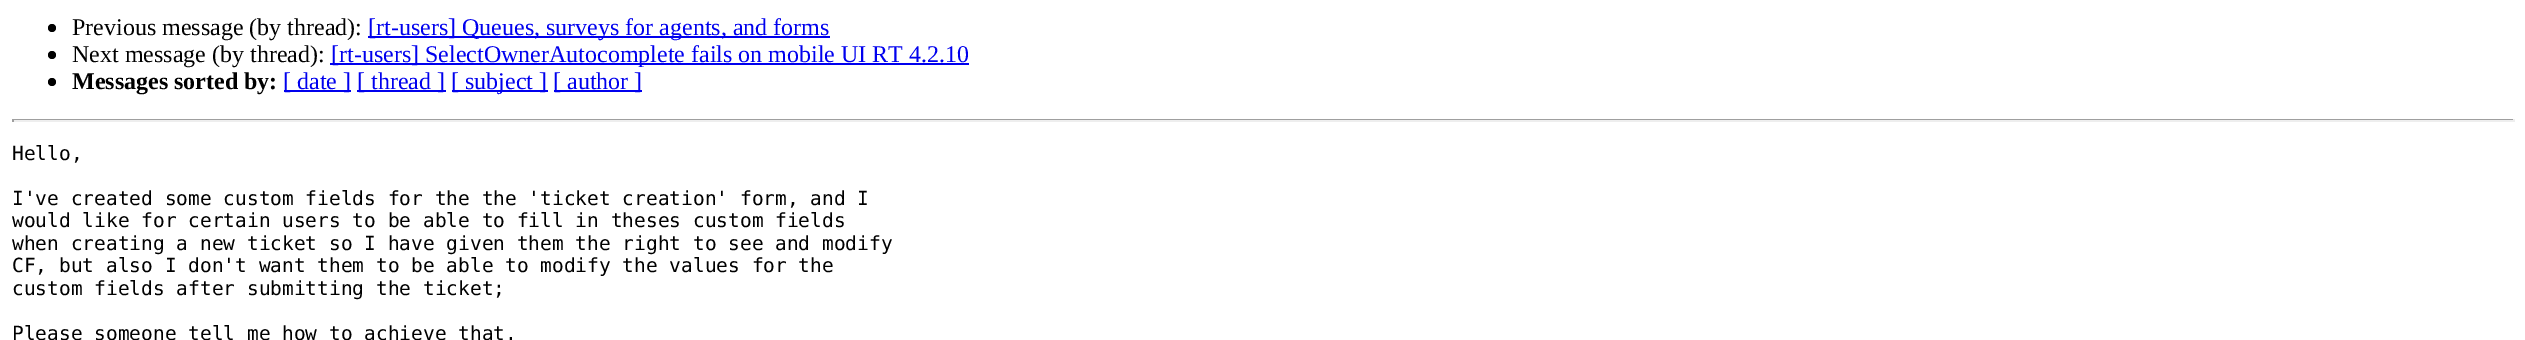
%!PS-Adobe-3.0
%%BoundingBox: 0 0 2525 340
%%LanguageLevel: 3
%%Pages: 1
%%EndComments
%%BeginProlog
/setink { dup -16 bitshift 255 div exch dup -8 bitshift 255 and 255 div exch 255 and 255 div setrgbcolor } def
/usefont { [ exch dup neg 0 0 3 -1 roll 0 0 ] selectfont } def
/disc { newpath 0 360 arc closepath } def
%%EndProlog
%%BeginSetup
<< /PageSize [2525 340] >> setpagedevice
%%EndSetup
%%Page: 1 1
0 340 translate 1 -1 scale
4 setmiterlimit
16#FFFFFF setink
0 0 2525 340 rectfill
16#000000 setink
52 28 4 disc fill
/LiberationSerif-Regular 24 usefont
72 35 moveto (Previous message \(by thread\):) show
16#0000EE setink
368 36 462 2 rectfill
368 35 moveto ([rt-users] Queues, surveys for agents, and forms) show
16#000000 setink
52 55 4 disc fill
72 62 moveto (Next message \(by thread\):) show
16#0000EE setink
330 63 639 2 rectfill
331 62 moveto ([rt-users] SelectOwnerAutocomplete fails on mobile UI RT 4.2.10) show
16#000000 setink
52 82 4 disc fill
/LiberationSerif-Bold 24 usefont
72 89 moveto (Messages sorted by:) show
16#0000EE setink
284 90 67 2 rectfill
/LiberationSerif-Regular 24 usefont
283 89 moveto ([ date ]) show
357 90 89 2 rectfill
357 89 moveto ([ thread ]) show
452 90 96 2 rectfill
451 89 moveto ([ subject ]) show
554 90 88 2 rectfill
553 89 moveto ([ author ]) show
[
    [12 119 2502 1 16#9F9F9F]
    [2513 119 2 3 16#EEEEEE]
    [12 120 2502 2 16#EEEEEE]
    [12 119 2 3 16#9F9F9F]
] { aload pop setink rectfill } forall
/DejaVuSansMono-Regular 19.5 usefont
16#000000 setink
[
    [(Hello,) 12 160]
    [(I've created some custom fields for the the 'ticket creation' form, and I) 12 205]
    [(would like for certain users to be able to fill in theses custom fields) 12 227]
    [(when creating a new ticket so I have given them the right to see and modify) 12 250]
    [(CF, but also I don't want them to be able to modify the values for the) 12 272]
    [(custom fields after submitting the ticket;) 12 295]
    [(Please someone tell me how to achieve that.) 12 340]
] { aload pop moveto show } forall
showpage
%%EOF
